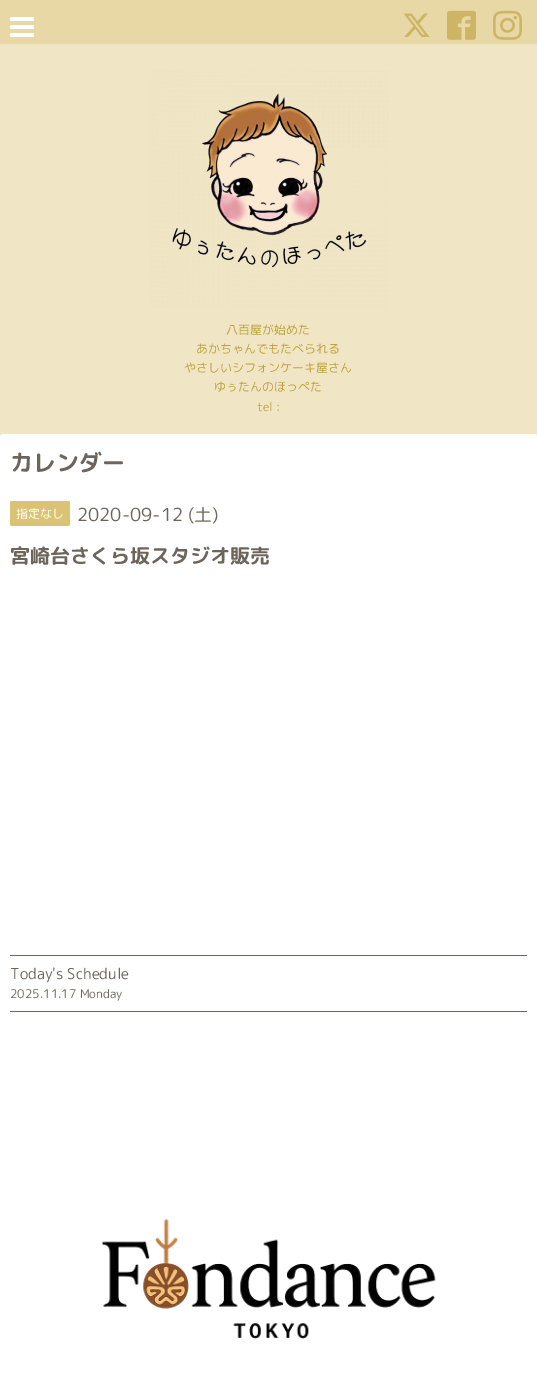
%!PS-Adobe-3.0
%%BoundingBox: 0 0 537 1378
%%LanguageLevel: 3
%%Pages: 1
%%EndComments
%%BeginProlog
/setink { dup -16 bitshift 255 div exch dup -8 bitshift 255 and 255 div exch 255 and 255 div setrgbcolor } def
/usefont { [ exch dup neg 0 0 3 -1 roll 0 0 ] selectfont } def
/setalpha { dup .setfillconstantalpha .setstrokeconstantalpha } def
/rrect { 5 dict begin { /r /h /w /y /x } { exch def } forall
  x r add y moveto x w add y 2 copy h add r arct x w add y h add x 1 index r arct
  x y h add x y r arct x y 2 copy exch w add exch r arct closepath end } def
/softshadow { 12 dict begin { /a /b /q /h /w /y /x } { exch def } forall gsave /was 0 def
  9 -2 -9 { dup b mul 4 div /e exch def 1 sub .425 mul 2.718 exch exp 1 add a .99 .min exch div /now exch def
    1 1 now sub 1 was sub div sub setalpha /was now def
    w h .min e 2 mul add 0 gt { x e sub y e sub w e 2 mul add h e 2 mul add
      q e add b .6 mul add w h .min 2 div e add .min 0 .max rrect fill } if } for grestore end } def
/drawimage { 5 dict begin { /h /w /y /x /name } { exch def } forall
  gsave x y translate w h scale
  w h 8 [w 0 0 h 0 0] name (r) file false 3 colorimage grestore end } def
%%EndProlog
%%BeginSetup
<< /PageSize [537 1378] /PageUsesTransparency true >> setpagedevice
%%EndSetup
%%Page: 1 1
0 .pushpdf14devicefilter
0 1378 translate 1 -1 scale
4 setmiterlimit
16#F0E6C5 setink
0 0 537 1378 rectfill
16#E8D8A5 setink
0 0 537 44 rectfill
(img1.raw) 10 17 24 20 drawimage
(img2.raw) 403 13 27 25 drawimage
(img3.raw) 447 10 29 30 drawimage
(img4.raw) 493 10 29 30 drawimage
(img5.raw) 149 68 240 240 drawimage
/RoundedMplus1c-Regular 12 usefont
16#BFA13D setink
[
    [(八百屋が始めた) 226 334]
    [(あかちゃんでもたべられる) 196 353]
    [(やさしいシフォンケーキ屋さん) 184 372]
    [(ゆぅたんのほっぺた) 214 391]
    [(tel :) 257 411]
] { aload pop moveto show } forall
16#E8D8A5 setink
0 437 537 500 3 5 0.4 softshadow
16#FFFFFF setink
3 434 moveto 534 434 lineto 535.5 434 537 435.5 537 437 curveto 537 934 lineto 0 934 lineto 0 437 lineto 0 435.5 1.5 434 3 434 curveto closepath fill
/RoundedMplus1cBold-Bold 23 usefont
16#6D655B setink
10 471 moveto (カレンダー) show
16#DBC374 setink
10 501 60 25 2 rrect fill
/RoundedMplus1c-Regular 12 usefont
16#FFFFFF setink
16 518 moveto (指定なし) show
/RoundedMplus1c-Regular 18 usefont
16#6D655B setink
77 521 moveto (2020-09-12 \(土\)) show
/RoundedMplus1cBold-Bold 20 usefont
10 563 moveto (宮崎台さくら坂スタジオ販売) show
[
    [0 934 537 444 16#FFFFFF]
    [10 955 517 1 16#6D655B]
    [10 1011 517 1 16#6D655B]
] { aload pop setink rectfill } forall
/RoundedMplus1c-Regular 15 usefont
10 979 moveto (Today's Schedule) show
/RoundedMplus1c-Regular 12 usefont
10 998 moveto (2025.11.17 Monday) show
(img6.raw) 101 1219 335 120 drawimage
.poppdf14devicefilter showpage
%%EOF
